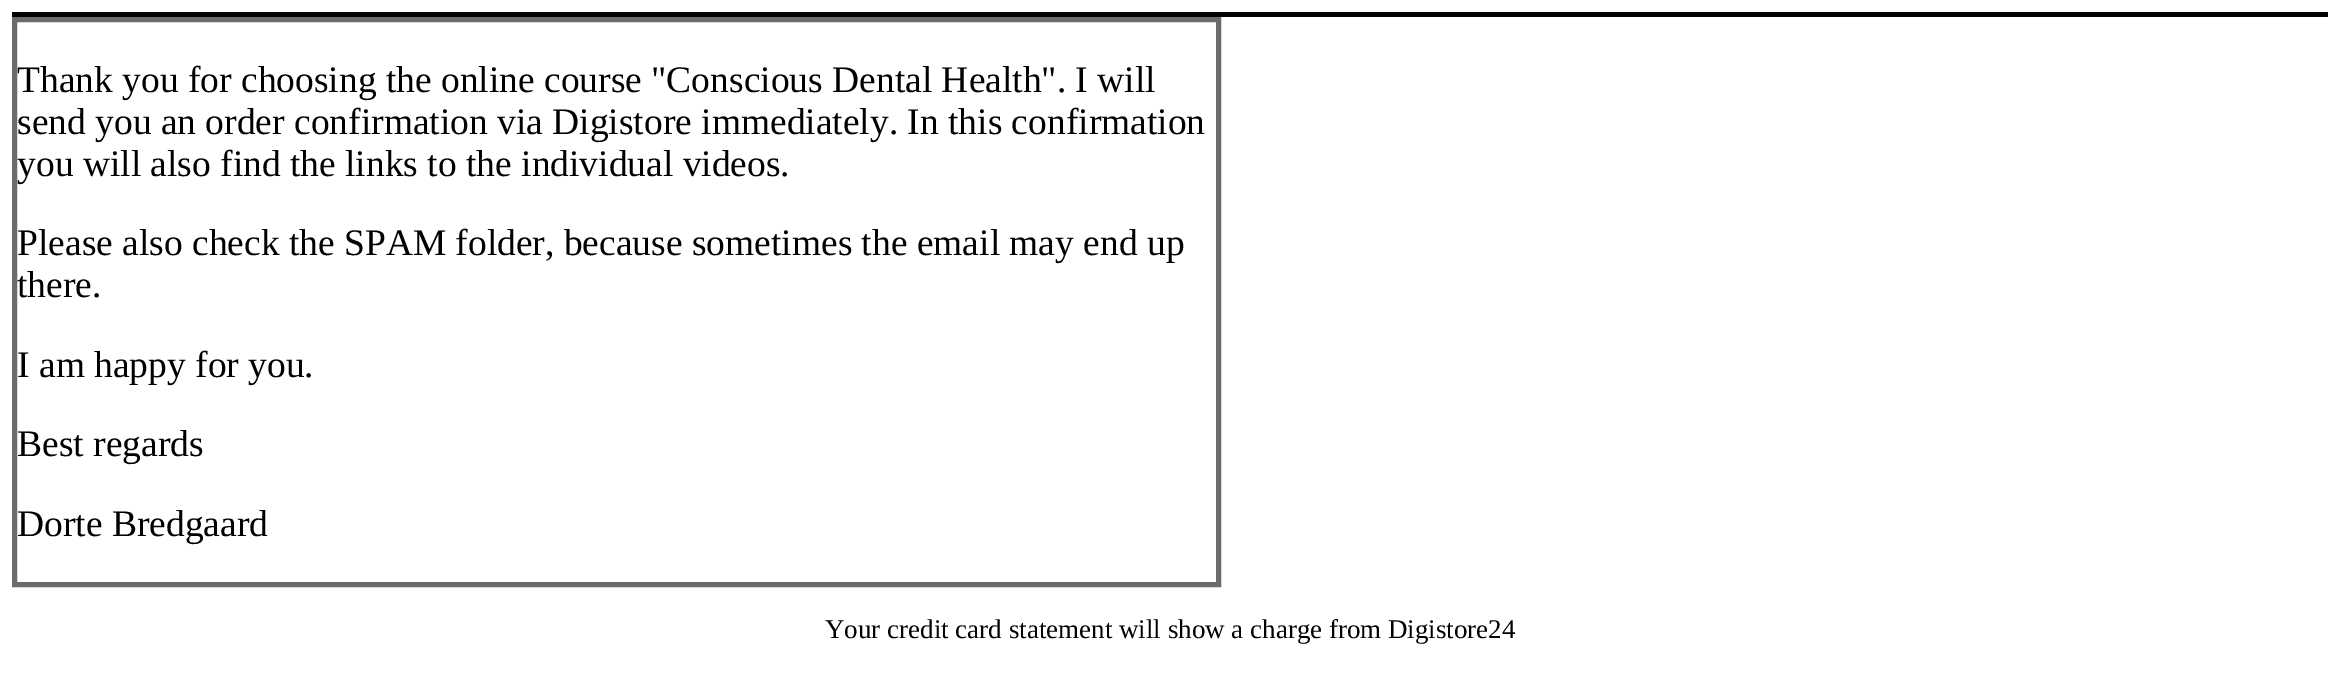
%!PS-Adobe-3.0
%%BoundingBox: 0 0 2339 697
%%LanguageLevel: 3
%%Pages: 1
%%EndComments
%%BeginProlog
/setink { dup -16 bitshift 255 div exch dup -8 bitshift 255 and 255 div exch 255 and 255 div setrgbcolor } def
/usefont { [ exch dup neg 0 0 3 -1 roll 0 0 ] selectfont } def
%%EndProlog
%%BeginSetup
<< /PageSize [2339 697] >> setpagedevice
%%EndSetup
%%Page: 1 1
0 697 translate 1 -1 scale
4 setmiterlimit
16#FFFFFF setink
0 0 2339 697 rectfill
16#000000 setink
12 12 2316 5 rectfill
16#6A6B6C setink
5 setlinewidth
14.5 19.5 1204 565 rectstroke
/LiberationSerif-Regular 37.5 usefont
16#000000 setink
[
    [(Thank you for choosing the online course "Conscious Dental Health". I will) 17 92]
    [(send you an order confirmation via Digistore immediately. In this confirmation) 17 134]
    [(you will also find the links to the individual videos.) 17 176]
    [(Please also check the SPAM folder, because sometimes the email may end up) 17 255]
    [(there.) 17 297]
    [(I am happy for you.) 17 377]
    [(Best regards) 17 456]
    [(Dorte Bredgaard) 17 536]
] { aload pop moveto show } forall
/LiberationSerif-Regular 27 usefont
825 638 moveto (Your credit card statement will show a charge from Digistore24) show
showpage
%%EOF
